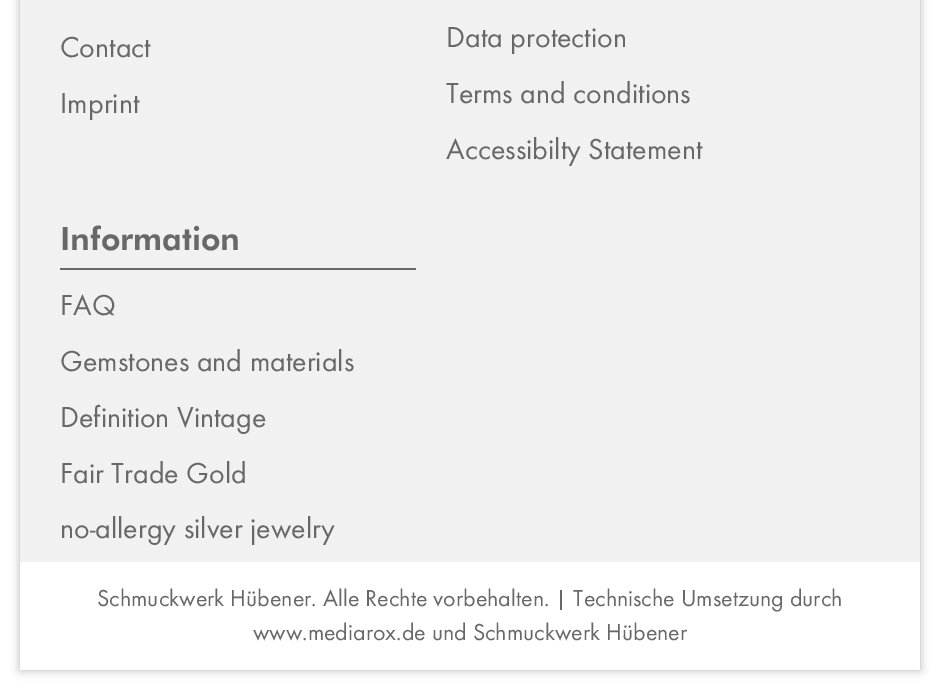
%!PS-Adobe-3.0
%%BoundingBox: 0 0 939 690
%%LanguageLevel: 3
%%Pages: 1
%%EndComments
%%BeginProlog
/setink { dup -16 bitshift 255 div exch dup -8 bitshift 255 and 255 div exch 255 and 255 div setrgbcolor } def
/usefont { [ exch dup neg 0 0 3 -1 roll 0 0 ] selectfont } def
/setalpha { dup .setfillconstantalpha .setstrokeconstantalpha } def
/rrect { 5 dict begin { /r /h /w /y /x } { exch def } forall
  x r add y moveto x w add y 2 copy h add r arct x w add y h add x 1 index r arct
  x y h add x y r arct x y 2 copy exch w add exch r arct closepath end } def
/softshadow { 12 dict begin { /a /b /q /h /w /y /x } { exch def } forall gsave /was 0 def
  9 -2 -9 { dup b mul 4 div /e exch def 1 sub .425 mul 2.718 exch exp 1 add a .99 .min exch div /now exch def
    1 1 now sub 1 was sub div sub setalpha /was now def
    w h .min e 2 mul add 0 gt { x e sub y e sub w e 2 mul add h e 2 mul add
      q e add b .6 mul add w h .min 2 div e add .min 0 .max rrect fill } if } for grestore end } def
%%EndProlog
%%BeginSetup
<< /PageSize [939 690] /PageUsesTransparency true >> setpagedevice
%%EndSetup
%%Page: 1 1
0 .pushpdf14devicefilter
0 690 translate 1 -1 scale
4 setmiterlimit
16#FFFFFF setink
0 0 939 690 rectfill
gsave
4 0 moveto 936 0 lineto 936 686 lineto 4 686 lineto closepath 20 -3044 moveto 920 -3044 lineto 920 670 lineto 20 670 lineto closepath eoclip newpath
16#000000 setink
20 -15 900 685 0 5 0.3 softshadow
grestore
16#F1F1F1 setink
20 0 900 562 rectfill
/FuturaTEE-Regular 30 usefont
16#686868 setink
[
    [(Contact) 60 57]
    [(Imprint) 60 113]
    [(Data protection) 446 47]
    [(Terms and conditions) 446 103]
    [(Accessibilty Statement) 446 159]
] { aload pop moveto show } forall
60 268 356 2 rectfill
/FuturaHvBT-Black 32 usefont
60 250 moveto (Information) show
/FuturaTEE-Regular 30 usefont
[
    [(FAQ) 60 315]
    [(Gemstones and materials) 60 371]
    [(Definition Vintage) 60 427]
    [(Fair Trade Gold) 60 483]
    [(no-allergy silver jewelry) 60 538]
] { aload pop moveto show } forall
/FuturaTEE-Regular 24 usefont
97 606 moveto (Schmuckwerk Hübener. Alle Rechte vorbehalten. | Technische Umsetzung durch) show
253 640 moveto (www.mediarox.de und Schmuckwerk Hübener) show
.poppdf14devicefilter showpage
%%EOF
